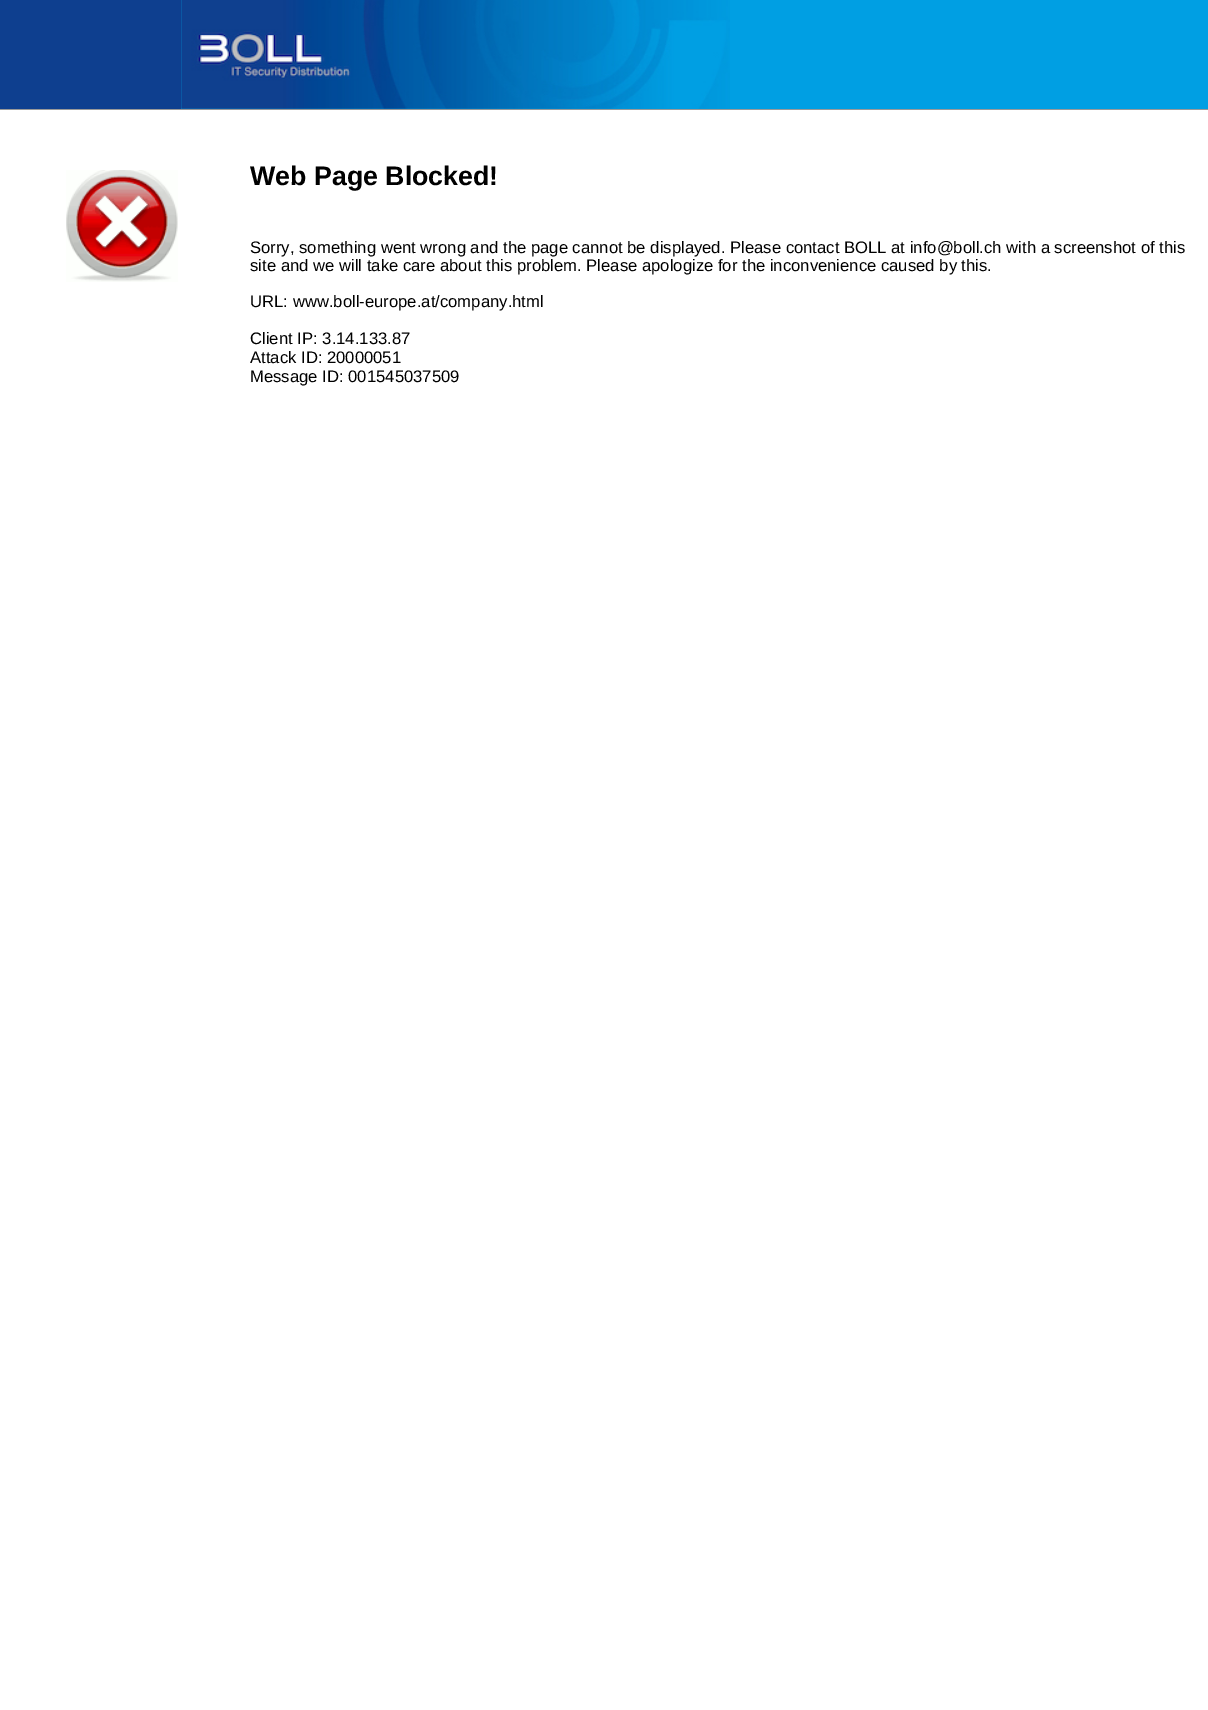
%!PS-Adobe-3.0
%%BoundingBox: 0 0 1208 1710
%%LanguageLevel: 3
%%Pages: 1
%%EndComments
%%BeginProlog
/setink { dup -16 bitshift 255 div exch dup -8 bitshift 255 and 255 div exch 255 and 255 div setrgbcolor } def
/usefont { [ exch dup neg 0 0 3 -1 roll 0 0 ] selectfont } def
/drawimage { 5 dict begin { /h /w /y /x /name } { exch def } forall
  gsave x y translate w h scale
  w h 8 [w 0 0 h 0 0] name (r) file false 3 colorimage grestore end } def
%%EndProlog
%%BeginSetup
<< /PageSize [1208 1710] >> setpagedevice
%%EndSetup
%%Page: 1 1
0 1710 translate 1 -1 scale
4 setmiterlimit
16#FFFFFF setink
0 0 1208 1710 rectfill
16#0E3F8F setink
0 0 181 109 rectfill
16#009FE3 setink
181 0 1027 109 rectfill
(img1.raw) 181 0 549 109 drawimage
16#999999 setink
0 109 1208 1 rectfill
(img2.raw) 66 170 112 112 drawimage
/LiberationSans-Bold 26.75 usefont
16#000000 setink
250 185 moveto (Web Page Blocked!) show
/LiberationSans-Regular 16.67 usefont
[
    [(Sorry, something went wrong and the page cannot be displayed. Please contact BOLL at info@boll.ch with a screenshot of this) 250 253]
    [(site and we will take care about this problem. Please apologize for the inconvenience caused by this.) 250 271]
    [(URL: www.boll-europe.at/company.html) 250 307]
    [(Client IP: 3.14.133.87) 250 344]
    [(Attack ID: 20000051) 250 363]
    [(Message ID: 001545037509) 250 382]
] { aload pop moveto show } forall
showpage
%%EOF
